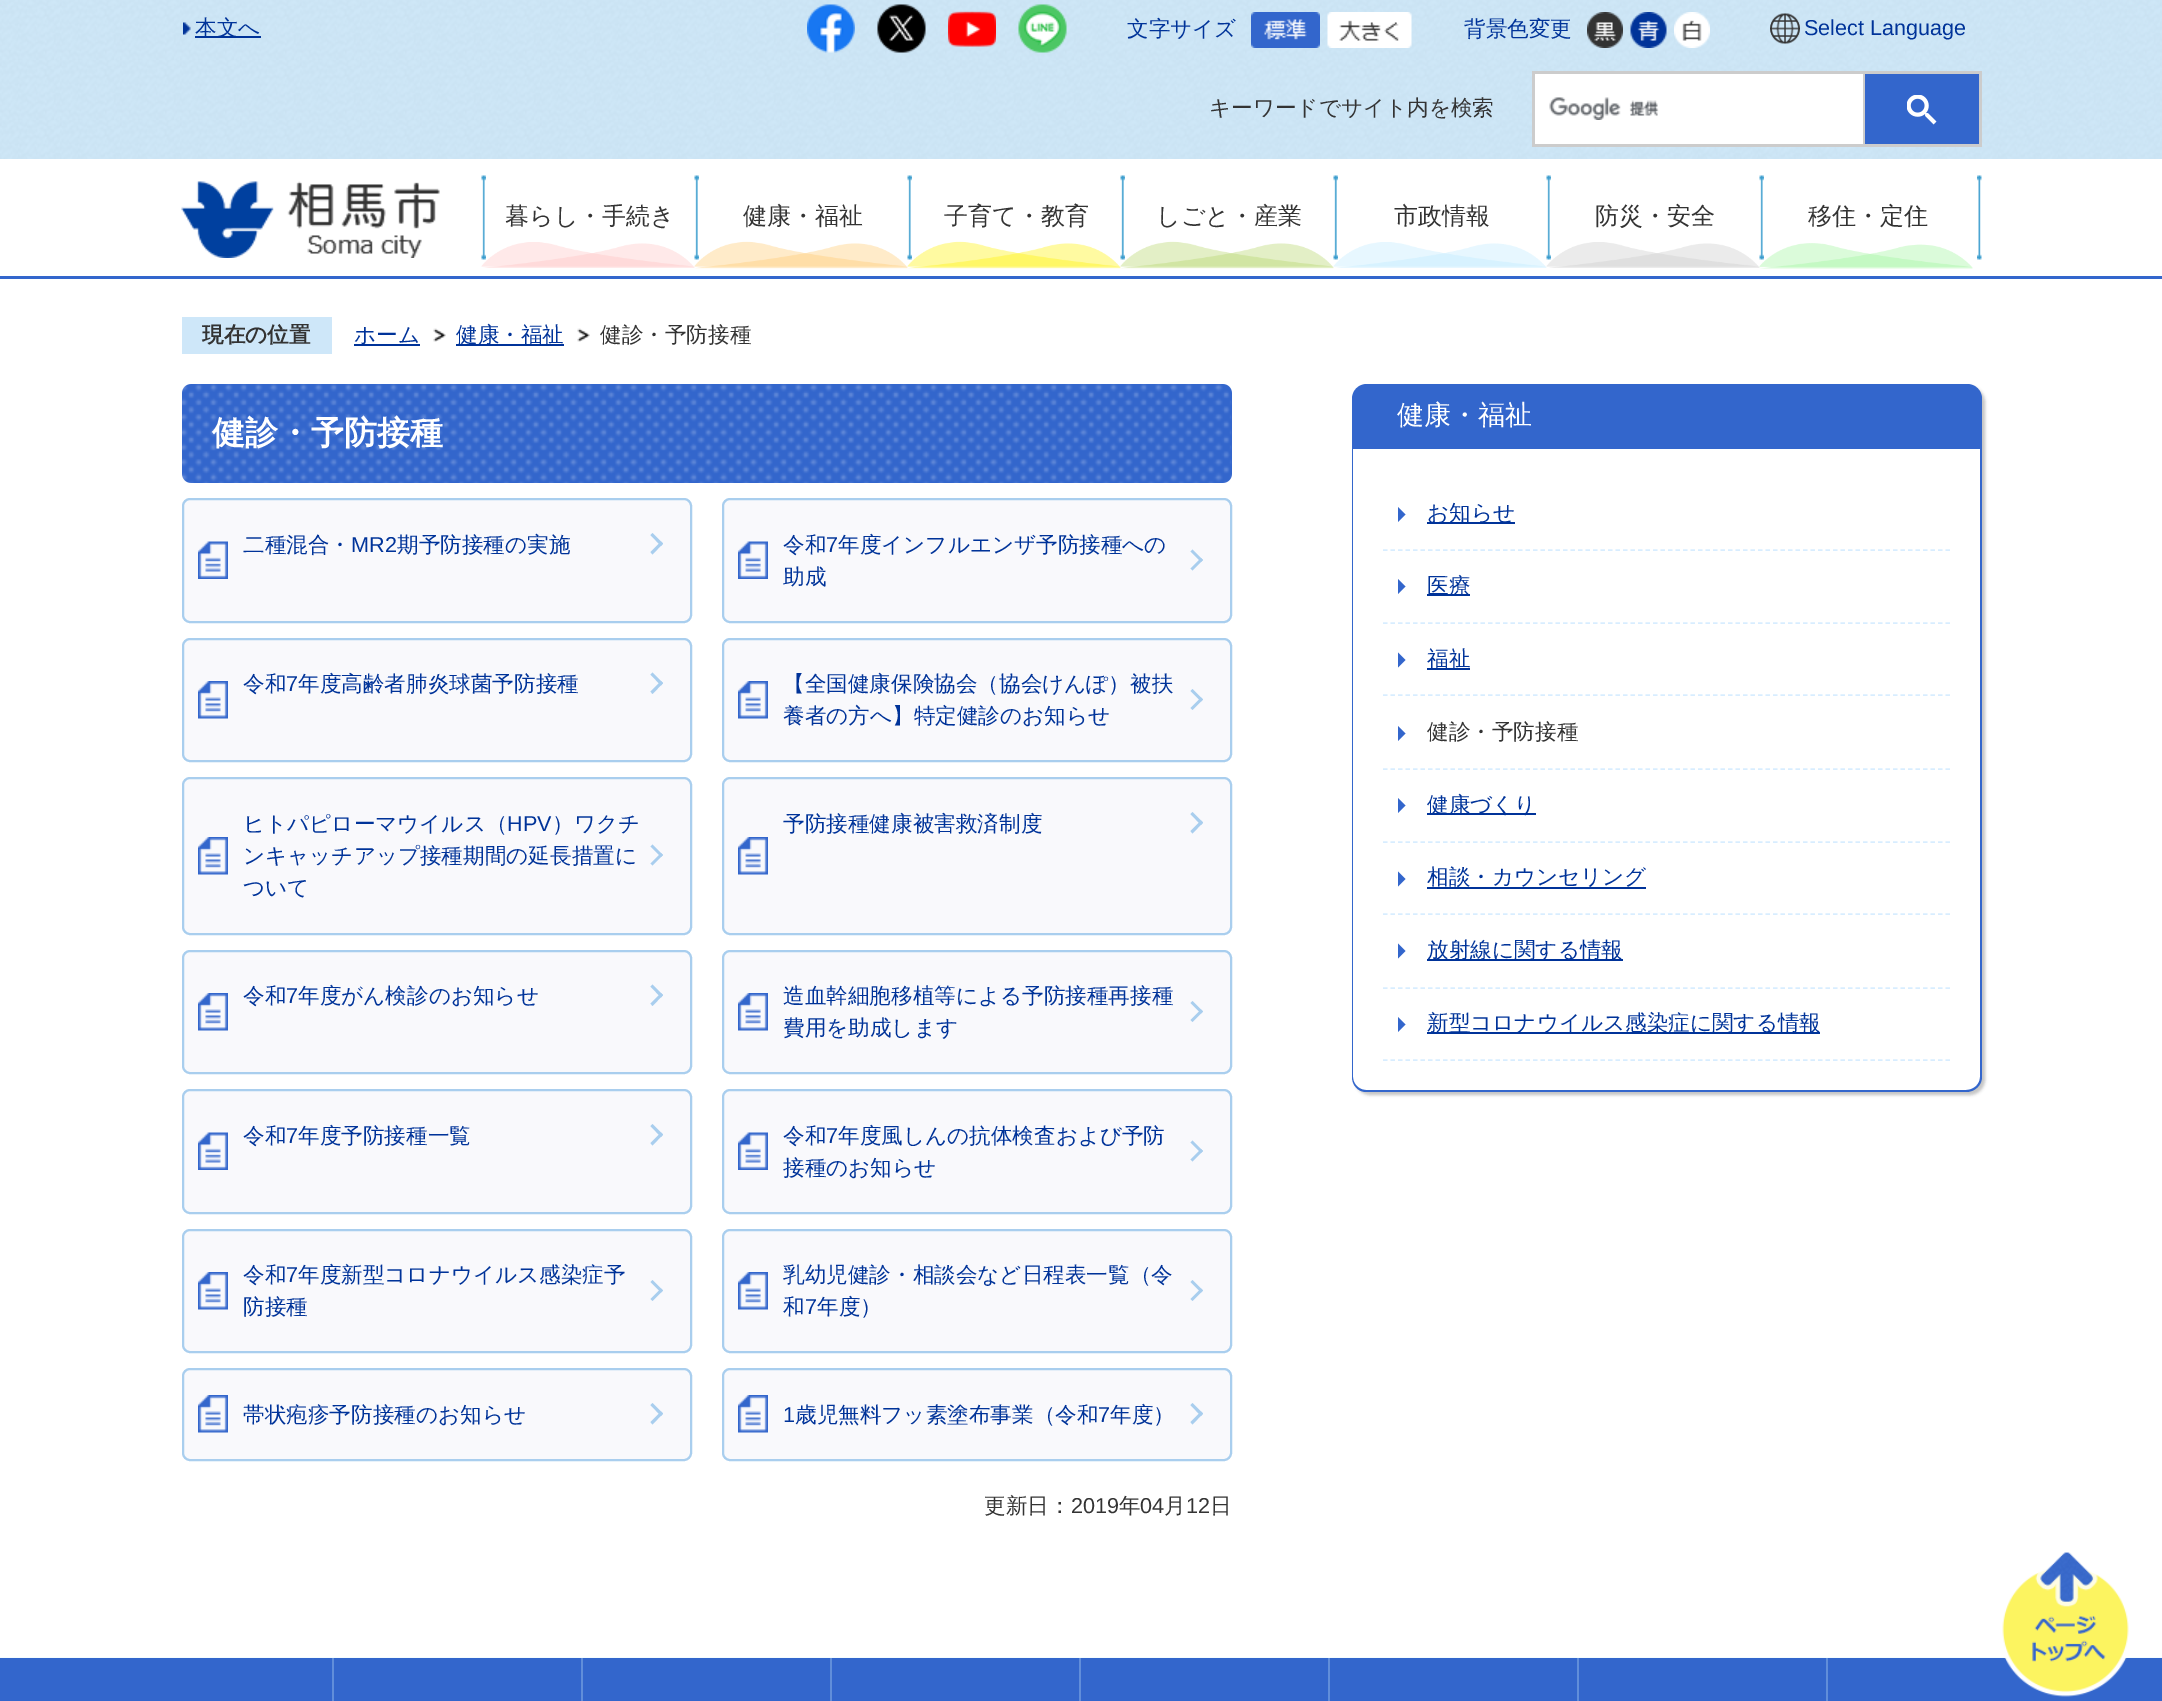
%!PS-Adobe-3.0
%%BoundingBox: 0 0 2162 1701
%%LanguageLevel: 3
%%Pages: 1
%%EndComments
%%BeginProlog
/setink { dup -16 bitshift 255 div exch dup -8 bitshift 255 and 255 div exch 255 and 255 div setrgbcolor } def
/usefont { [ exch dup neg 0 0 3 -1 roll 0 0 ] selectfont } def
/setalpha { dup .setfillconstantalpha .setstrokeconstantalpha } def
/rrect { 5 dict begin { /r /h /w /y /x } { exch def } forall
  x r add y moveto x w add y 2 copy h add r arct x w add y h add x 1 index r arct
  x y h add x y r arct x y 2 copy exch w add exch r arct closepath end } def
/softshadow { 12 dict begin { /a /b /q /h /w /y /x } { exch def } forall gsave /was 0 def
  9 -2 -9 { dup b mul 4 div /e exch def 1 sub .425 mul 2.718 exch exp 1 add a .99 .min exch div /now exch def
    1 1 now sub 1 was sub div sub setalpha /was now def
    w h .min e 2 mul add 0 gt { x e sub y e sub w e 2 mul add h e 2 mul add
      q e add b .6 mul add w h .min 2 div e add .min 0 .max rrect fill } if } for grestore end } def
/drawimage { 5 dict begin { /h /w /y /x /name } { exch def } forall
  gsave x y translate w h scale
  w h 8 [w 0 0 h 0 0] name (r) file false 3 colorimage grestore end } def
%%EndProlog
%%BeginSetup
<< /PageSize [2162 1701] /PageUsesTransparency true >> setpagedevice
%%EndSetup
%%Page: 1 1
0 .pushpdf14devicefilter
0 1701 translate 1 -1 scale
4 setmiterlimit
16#FFFFFF setink
0 0 2162 1701 rectfill
16#3366CC setink
0 276 2162 3 rectfill
(img1.raw) 0 0 2162 159 drawimage
(img2.raw) 183 22 8 13 drawimage
16#003399 setink
195 36 66 2 rectfill
/WenQuanYiZenHei-Medium 21.6 usefont
195 35 moveto (本文へ) show
(img3.raw) 807 4 48 49 drawimage
(img4.raw) 877 4 49 49 drawimage
(img5.raw) 948 11 48 36 drawimage
(img6.raw) 1018 4 49 49 drawimage
1127 36 moveto (文字サイズ) show
(img7.raw) 1251 12 69 36 drawimage
(img8.raw) 1327 12 85 36 drawimage
1464 36 moveto (背景色変更) show
(img9.raw) 1587 12 36 36 drawimage
(img10.raw) 1630 12 37 36 drawimage
(img11.raw) 1674 12 36 36 drawimage
(img12.raw) 1770 13 30 31 drawimage
/LiberationSans-Regular 21.6 usefont
1804 35 moveto (Select Language) show
/WenQuanYiZenHei-Medium 21.6 usefont
16#333333 setink
1209 115 moveto (キーワードでサイト内を検索) show
[
    [1535 74 328 70 16#FFFFFF]
    [1532 71 450 3 16#CCCCCC]
    [1863 71 2 76 16#CCCCCC]
    [1532 144 333 3 16#CCCCCC]
    [1532 71 3 76 16#CCCCCC]
] { aload pop setink rectfill } forall
(img13.raw) 1549 97 110 23 drawimage
[
    [1865 74 114 70 16#3366CC]
    [1979 71 3 76 16#CCCCCC]
    [1865 144 117 3 16#CCCCCC]
] { aload pop setink rectfill } forall
(img14.raw) 1907 95 30 30 drawimage
(img15.raw) 181 181 259 77 drawimage
(img16.raw) 1977 175 5 85 drawimage
(img17.raw) 481 175 5 85 drawimage
(img18.raw) 481 242 214 26 drawimage
/WenQuanYiZenHei-Medium 24 usefont
16#333333 setink
505 224 moveto (暮らし・手続き) show
(img19.raw) 694 175 5 85 drawimage
(img20.raw) 694 241 214 28 drawimage
743 224 moveto (健康・福祉) show
(img17.raw) 907 175 5 85 drawimage
(img21.raw) 907 241 214 28 drawimage
944 224 moveto (子育て・教育) show
(img19.raw) 1120 175 5 85 drawimage
(img22.raw) 1120 241 214 28 drawimage
1156 224 moveto (しごと・産業) show
(img19.raw) 1333 175 5 85 drawimage
(img23.raw) 1333 242 214 26 drawimage
1394 224 moveto (市政情報) show
(img17.raw) 1546 175 5 85 drawimage
(img24.raw) 1546 242 214 26 drawimage
1595 224 moveto (防災・安全) show
(img17.raw) 1759 175 5 85 drawimage
(img25.raw) 1759 243 214 26 drawimage
1808 224 moveto (移住・定住) show
16#CEE7F9 setink
182 317 150 37 rectfill
/WenQuanYiZenHei-Bold 21.6 usefont
16#333333 setink
202 342 moveto (現在の位置) show
16#003399 setink
354 344 66 2 rectfill
/WenQuanYiZenHei-Medium 21.6 usefont
354 342 moveto (ホーム) show
(img26.raw) 433 328 13 14 drawimage
456 344 108 2 rectfill
456 342 moveto (健康・福祉) show
(img26.raw) 577 328 13 14 drawimage
16#333333 setink
600 342 moveto (健診・予防接種) show
16#3366CC setink
182 384 1050 99 9 rrect fill
(img27.raw) 182 384 1050 99 drawimage
/WenQuanYiZenHei-Bold 33 usefont
16#FFFFFF setink
212 444 moveto (健診・予防接種) show
16#F9F9FC setink
182 498 510 125 8 rrect fill
(img28.raw) 198 541 30 38 drawimage
16#A9CEEE setink
2 setlinewidth
183 499 508 123 7 rrect stroke
/WenQuanYiZenHei-Medium 21.6 usefont
16#003399 setink
243 552 moveto (二種混合・) show
/LiberationSans-Regular 21.6 usefont
351 552 moveto (MR2) show
/WenQuanYiZenHei-Medium 21.6 usefont
397 552 moveto (期予防接種の実施) show
16#A9CEEE setink
652.5 533 moveto 663 543.5 lineto 661 546 lineto 650.5 535 lineto closepath fill
661 541.5 moveto 663 543.5 lineto 652.5 554.5 lineto 650.5 552 lineto closepath fill
16#F9F9FC setink
722 498 510 125 8 rrect fill
(img29.raw) 738 541 30 38 drawimage
16#A9CEEE setink
723 499 508 123 7 rrect stroke
16#003399 setink
783 552 moveto (令和) show
/LiberationSans-Regular 21.6 usefont
826 552 moveto (7) show
/WenQuanYiZenHei-Medium 21.6 usefont
838 552 moveto (年度インフルエンザ予防接種への) show
16#A9CEEE setink
1192.5 549.5 moveto 1203 560 lineto 1201 562 lineto 1190.5 551.5 lineto closepath fill
1201 558 moveto 1203 560 lineto 1192.5 570.5 lineto 1190.5 568.5 lineto closepath fill
16#003399 setink
783 584 moveto (助成) show
16#F9F9FC setink
182 638 510 124 8 rrect fill
(img30.raw) 198 681 30 38 drawimage
16#A9CEEE setink
183 639 508 122 7 rrect stroke
16#003399 setink
243 691 moveto (令和) show
/LiberationSans-Regular 21.6 usefont
286 691 moveto (7) show
/WenQuanYiZenHei-Medium 21.6 usefont
298 691 moveto (年度高齢者肺炎球菌予防接種) show
16#A9CEEE setink
652.5 672.5 moveto 663 683 lineto 661 685.5 lineto 650.5 674.5 lineto closepath fill
661 681 moveto 663 683 lineto 652.5 694 lineto 650.5 691.5 lineto closepath fill
16#F9F9FC setink
722 638 510 124 8 rrect fill
(img31.raw) 738 681 30 38 drawimage
16#A9CEEE setink
723 639 508 122 7 rrect stroke
16#003399 setink
783 691 moveto (【全国健康保険協会（協会けんぽ）被扶) show
16#A9CEEE setink
1192.5 689 moveto 1203 699.5 lineto 1201 701.5 lineto 1190.5 691 lineto closepath fill
1201 697.5 moveto 1203 699.5 lineto 1192.5 710 lineto 1190.5 708 lineto closepath fill
16#003399 setink
783 723 moveto (養者の方へ】特定健診のお知らせ) show
16#F9F9FC setink
182 777 510 158 8 rrect fill
(img30.raw) 198 837 30 38 drawimage
16#A9CEEE setink
183 778 508 156 7 rrect stroke
16#003399 setink
243 831 moveto (ヒトパピローマウイルス（) show
/LiberationSans-Regular 21.6 usefont
507 831 moveto (HPV) show
/WenQuanYiZenHei-Medium 21.6 usefont
552 831 moveto (）ワクチ) show
243 863 moveto (ンキャッチアップ接種期間の延長措置に) show
16#A9CEEE setink
652.5 844.5 moveto 663 855 lineto 661 857 lineto 650.5 846.5 lineto closepath fill
661 853 moveto 663 855 lineto 652.5 865.5 lineto 650.5 863.5 lineto closepath fill
16#003399 setink
243 895 moveto (ついて) show
16#F9F9FC setink
722 777 510 158 8 rrect fill
(img31.raw) 738 837 30 38 drawimage
16#A9CEEE setink
723 778 508 156 7 rrect stroke
16#003399 setink
783 831 moveto (予防接種健康被害救済制度) show
16#A9CEEE setink
1192.5 812 moveto 1203 822.5 lineto 1201 825 lineto 1190.5 814 lineto closepath fill
1201 820.5 moveto 1203 822.5 lineto 1192.5 833.5 lineto 1190.5 831 lineto closepath fill
16#F9F9FC setink
182 950 510 124 8 rrect fill
(img30.raw) 198 993 30 38 drawimage
16#A9CEEE setink
183 951 508 122 7 rrect stroke
16#003399 setink
243 1003 moveto (令和) show
/LiberationSans-Regular 21.6 usefont
286 1003 moveto (7) show
/WenQuanYiZenHei-Medium 21.6 usefont
298 1003 moveto (年度がん検診のお知らせ) show
16#A9CEEE setink
652.5 984.5 moveto 663 995 lineto 661 997.5 lineto 650.5 986.5 lineto closepath fill
661 993 moveto 663 995 lineto 652.5 1006 lineto 650.5 1003.5 lineto closepath fill
16#F9F9FC setink
722 950 510 124 8 rrect fill
(img31.raw) 738 993 30 38 drawimage
16#A9CEEE setink
723 951 508 122 7 rrect stroke
16#003399 setink
783 1003 moveto (造血幹細胞移植等による予防接種再接種) show
16#A9CEEE setink
1192.5 1001 moveto 1203 1011.5 lineto 1201 1013.5 lineto 1190.5 1003 lineto closepath fill
1201 1009.5 moveto 1203 1011.5 lineto 1192.5 1022 lineto 1190.5 1020 lineto closepath fill
16#003399 setink
783 1035 moveto (費用を助成します) show
16#F9F9FC setink
182 1089 510 125 8 rrect fill
(img28.raw) 198 1132 30 38 drawimage
16#A9CEEE setink
183 1090 508 123 7 rrect stroke
16#003399 setink
243 1143 moveto (令和) show
/LiberationSans-Regular 21.6 usefont
286 1143 moveto (7) show
/WenQuanYiZenHei-Medium 21.6 usefont
298 1143 moveto (年度予防接種一覧) show
16#A9CEEE setink
652.5 1124 moveto 663 1134.5 lineto 661 1137 lineto 650.5 1126 lineto closepath fill
661 1132.5 moveto 663 1134.5 lineto 652.5 1145.5 lineto 650.5 1143 lineto closepath fill
16#F9F9FC setink
722 1089 510 125 8 rrect fill
(img29.raw) 738 1132 30 38 drawimage
16#A9CEEE setink
723 1090 508 123 7 rrect stroke
16#003399 setink
783 1143 moveto (令和) show
/LiberationSans-Regular 21.6 usefont
826 1143 moveto (7) show
/WenQuanYiZenHei-Medium 21.6 usefont
838 1143 moveto (年度風しんの抗体検査および予防) show
16#A9CEEE setink
1192.5 1140.5 moveto 1203 1151 lineto 1201 1153 lineto 1190.5 1142.5 lineto closepath fill
1201 1149 moveto 1203 1151 lineto 1192.5 1161.5 lineto 1190.5 1159.5 lineto closepath fill
16#003399 setink
783 1175 moveto (接種のお知らせ) show
16#F9F9FC setink
182 1229 510 124 8 rrect fill
(img30.raw) 198 1272 30 38 drawimage
16#A9CEEE setink
183 1230 508 122 7 rrect stroke
16#003399 setink
243 1282 moveto (令和) show
/LiberationSans-Regular 21.6 usefont
286 1282 moveto (7) show
/WenQuanYiZenHei-Medium 21.6 usefont
298 1282 moveto (年度新型コロナウイルス感染症予) show
16#A9CEEE setink
652.5 1280 moveto 663 1290.5 lineto 661 1292.5 lineto 650.5 1282 lineto closepath fill
661 1288.5 moveto 663 1290.5 lineto 652.5 1301 lineto 650.5 1299 lineto closepath fill
16#003399 setink
243 1314 moveto (防接種) show
16#F9F9FC setink
722 1229 510 124 8 rrect fill
(img31.raw) 738 1272 30 38 drawimage
16#A9CEEE setink
723 1230 508 122 7 rrect stroke
16#003399 setink
783 1282 moveto (乳幼児健診・相談会など日程表一覧（令) show
16#A9CEEE setink
1192.5 1280 moveto 1203 1290.5 lineto 1201 1292.5 lineto 1190.5 1282 lineto closepath fill
1201 1288.5 moveto 1203 1290.5 lineto 1192.5 1301 lineto 1190.5 1299 lineto closepath fill
16#003399 setink
783 1314 moveto (和) show
/LiberationSans-Regular 21.6 usefont
805 1314 moveto (7) show
/WenQuanYiZenHei-Medium 21.6 usefont
817 1314 moveto (年度）) show
16#F9F9FC setink
182 1368 510 93 8 rrect fill
(img30.raw) 198 1395 30 38 drawimage
16#A9CEEE setink
183 1369 508 91 7 rrect stroke
16#003399 setink
243 1422 moveto (帯状疱疹予防接種のお知らせ) show
16#A9CEEE setink
652.5 1403 moveto 663 1413.5 lineto 661 1416 lineto 650.5 1405 lineto closepath fill
661 1411.5 moveto 663 1413.5 lineto 652.5 1424.5 lineto 650.5 1422 lineto closepath fill
16#F9F9FC setink
722 1368 510 93 8 rrect fill
(img31.raw) 738 1395 30 38 drawimage
16#A9CEEE setink
723 1369 508 91 7 rrect stroke
/LiberationSans-Regular 21.6 usefont
16#003399 setink
783 1422 moveto (1) show
/WenQuanYiZenHei-Medium 21.6 usefont
795 1422 moveto (歳児無料フッ素塗布事業（令和) show
/LiberationSans-Regular 21.6 usefont
1098 1422 moveto (7) show
/WenQuanYiZenHei-Medium 21.6 usefont
1110 1422 moveto (年度）) show
16#A9CEEE setink
1192.5 1403 moveto 1203 1413.5 lineto 1201 1416 lineto 1190.5 1405 lineto closepath fill
1201 1411.5 moveto 1203 1413.5 lineto 1192.5 1424.5 lineto 1190.5 1422 lineto closepath fill
16#333333 setink
984 1513 moveto (更新日：) show
/LiberationSans-Regular 21.6 usefont
1071 1513 moveto (2019) show
/WenQuanYiZenHei-Medium 21.6 usefont
1119 1513 moveto (年) show
/LiberationSans-Regular 21.6 usefont
1140 1513 moveto (04) show
/WenQuanYiZenHei-Medium 21.6 usefont
1164 1513 moveto (月) show
/LiberationSans-Regular 21.6 usefont
1186 1513 moveto (12) show
/WenQuanYiZenHei-Medium 21.6 usefont
1210 1513 moveto (日) show
gsave
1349 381 moveto 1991 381 lineto 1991 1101 lineto 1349 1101 lineto closepath 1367 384 moveto 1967 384 lineto 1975.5 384 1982 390.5 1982 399 curveto 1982 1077 lineto 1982 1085.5 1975.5 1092 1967 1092 curveto 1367 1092 lineto 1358.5 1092 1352 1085.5 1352 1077 curveto 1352 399 lineto 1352 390.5 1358.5 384 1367 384 curveto closepath eoclip newpath
16#000000 setink
1355 387 630 708 15 1.5 0.23 softshadow
grestore
16#3366CC setink
1352 448 moveto 1982 448 lineto 1982 1077 lineto 1982 1085 1975 1092 1966 1092 curveto 1366 1092 lineto 1358 1092 1352 1085 1352 1077 curveto closepath 1353 448 moveto 1980 448 lineto 1980 1077 lineto 1980 1084 1974 1090 1966 1090 curveto 1366 1090 lineto 1359 1090 1353 1084 1353 1077 curveto closepath eofill
1367 384 moveto 1967 384 lineto 1975.5 384 1982 390.5 1982 399 curveto 1982 449 lineto 1352 449 lineto 1352 399 lineto 1352 390.5 1358.5 384 1367 384 curveto closepath fill
/WenQuanYiZenHei-Medium 27 usefont
16#FFFFFF setink
1397 424 moveto (健康・福祉) show
16#D8EDFF setink
1.5 setlinewidth
[4.5 3] 0 setdash
1383 550 moveto 1950 550 lineto stroke
16#3366CC setink
1398 522 moveto 1398 507 lineto 1405.5 514.5 lineto closepath fill
16#003399 setink
1427 522 88 2 rectfill
/WenQuanYiZenHei-Medium 21.6 usefont
1427 520 moveto (お知らせ) show
16#D8EDFF setink
1383 623 moveto 1950 623 lineto stroke
16#3366CC setink
1398 594 moveto 1398 579 lineto 1405.5 586.5 lineto closepath fill
16#003399 setink
1427 594 43 2 rectfill
1427 593 moveto (医療) show
16#D8EDFF setink
1383 695 moveto 1950 695 lineto stroke
16#3366CC setink
1398 667.5 moveto 1398 652.5 lineto 1405.5 660 lineto closepath fill
16#003399 setink
1427 668 43 2 rectfill
1427 666 moveto (福祉) show
16#D8EDFF setink
1383 769 moveto 1950 769 lineto stroke
16#3366CC setink
1398 741 moveto 1398 726 lineto 1405.5 733.5 lineto closepath fill
16#333333 setink
1427 739 moveto (健診・予防接種) show
16#D8EDFF setink
1383 842 moveto 1950 842 lineto stroke
16#3366CC setink
1398 813 moveto 1398 798 lineto 1405.5 805.5 lineto closepath fill
16#003399 setink
1427 813 109 2 rectfill
1427 812 moveto (健康づくり) show
16#D8EDFF setink
1383 914 moveto 1950 914 lineto stroke
16#3366CC setink
1398 886.5 moveto 1398 871.5 lineto 1405.5 879 lineto closepath fill
16#003399 setink
1427 887 219 2 rectfill
1427 884 moveto (相談・カウンセリング) show
16#D8EDFF setink
1383 988 moveto 1950 988 lineto stroke
16#3366CC setink
1398 958.5 moveto 1398 943.5 lineto 1405.5 951 lineto closepath fill
16#003399 setink
1427 959 196 2 rectfill
1427 957 moveto (放射線に関する情報) show
16#D8EDFF setink
1383 1060 moveto 1950 1060 lineto stroke
16#3366CC setink
1398 1032 moveto 1398 1017 lineto 1405.5 1024.5 lineto closepath fill
16#003399 setink
1427 1032 393 2 rectfill
1427 1030 moveto (新型コロナウイルス感染症に関する情報) show
(img32.raw) 0 1657 2162 1 drawimage
16#3366CC setink
0 1658 2162 43 rectfill
(img33.raw) 2002 1552 127 145 drawimage
[
    [332 1658 2 43 16#618EDA]
    [581 1658 2 43 16#618EDA]
    [830 1658 2 43 16#618EDA]
    [1079 1658 2 43 16#618EDA]
    [1328 1658 2 43 16#618EDA]
    [1577 1658 2 43 16#618EDA]
    [1826 1658 2 43 16#618EDA]
] { aload pop setink rectfill } forall
.poppdf14devicefilter showpage
%%EOF
